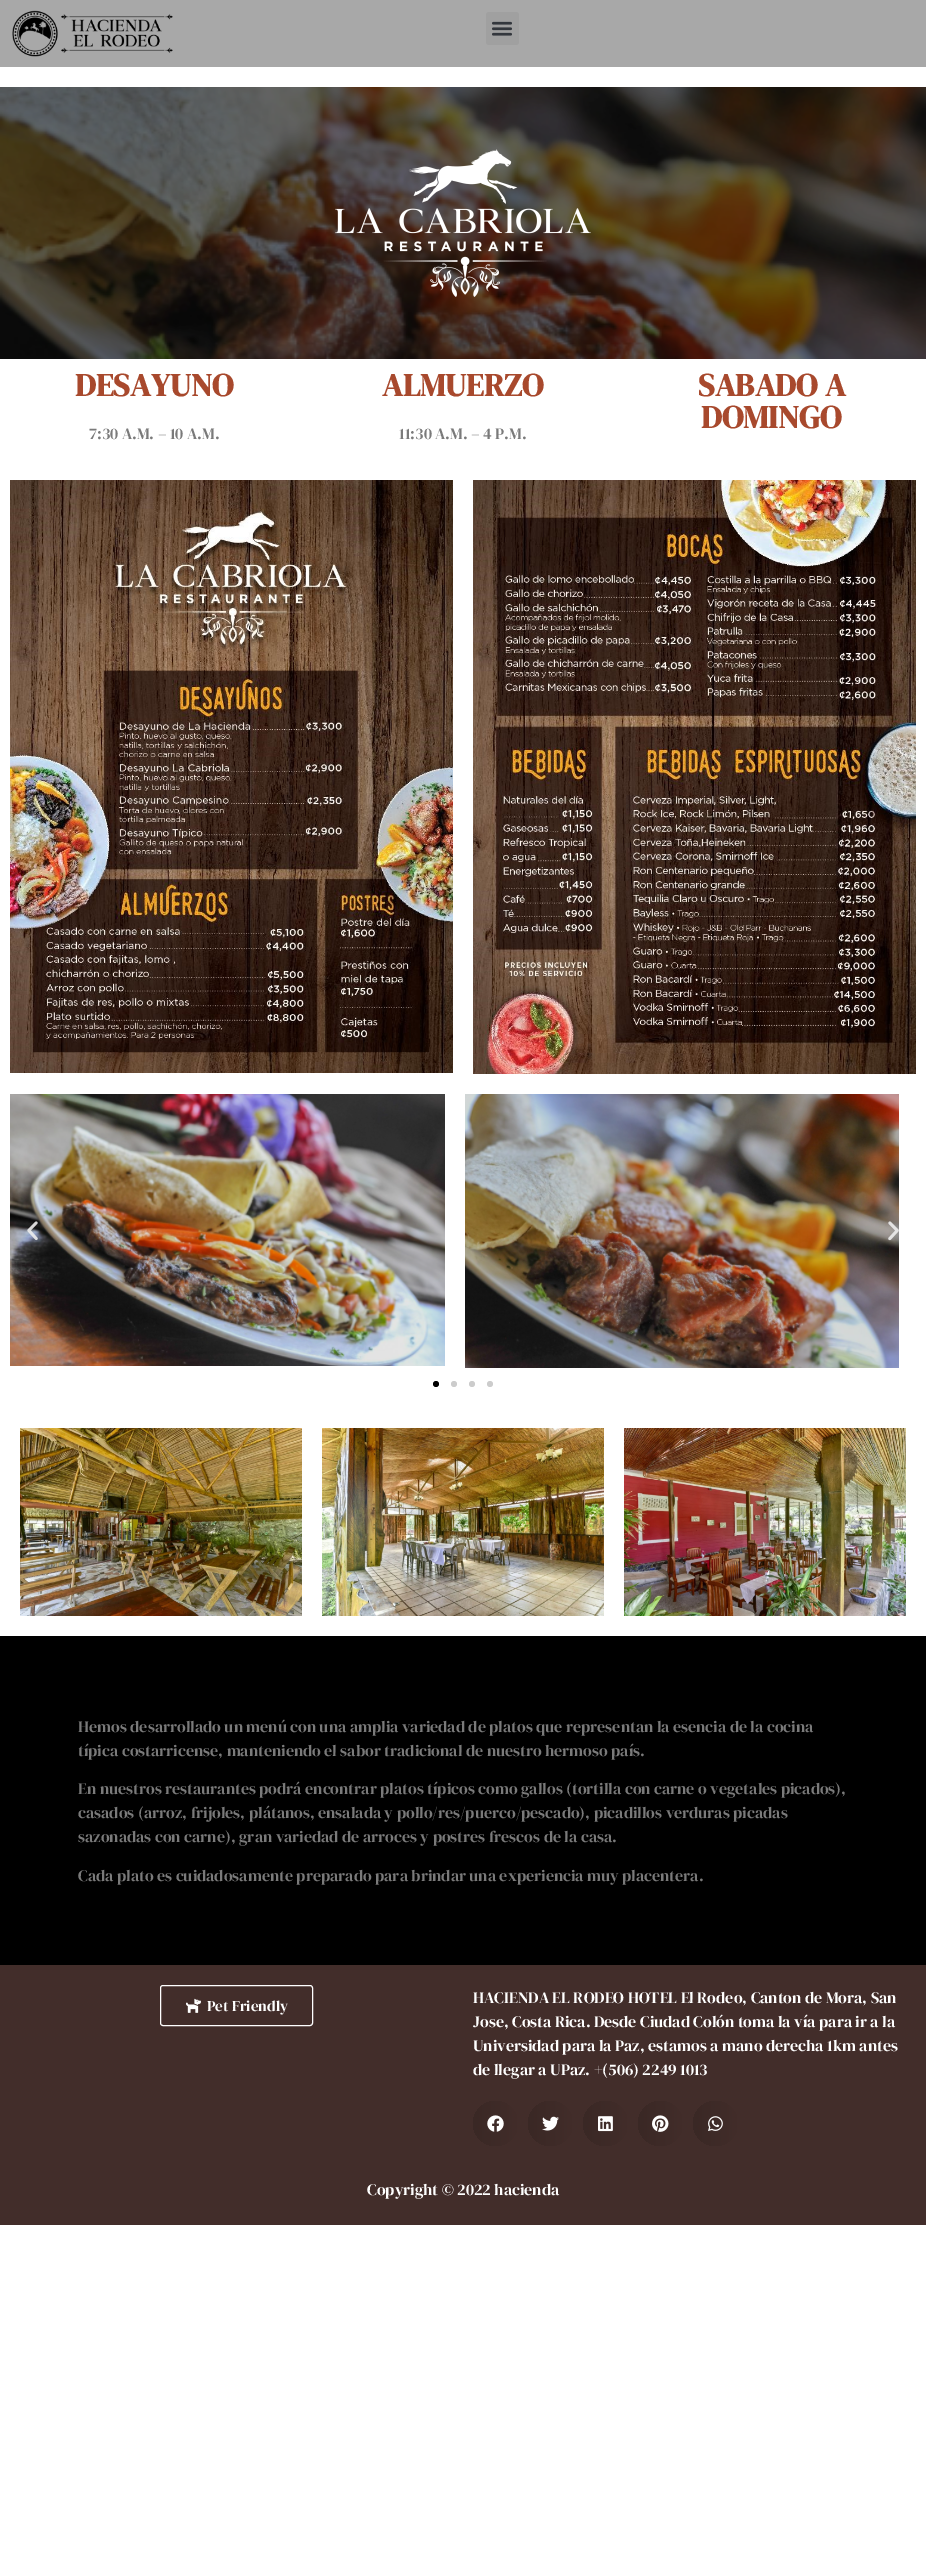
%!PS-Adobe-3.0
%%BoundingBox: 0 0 926 2573
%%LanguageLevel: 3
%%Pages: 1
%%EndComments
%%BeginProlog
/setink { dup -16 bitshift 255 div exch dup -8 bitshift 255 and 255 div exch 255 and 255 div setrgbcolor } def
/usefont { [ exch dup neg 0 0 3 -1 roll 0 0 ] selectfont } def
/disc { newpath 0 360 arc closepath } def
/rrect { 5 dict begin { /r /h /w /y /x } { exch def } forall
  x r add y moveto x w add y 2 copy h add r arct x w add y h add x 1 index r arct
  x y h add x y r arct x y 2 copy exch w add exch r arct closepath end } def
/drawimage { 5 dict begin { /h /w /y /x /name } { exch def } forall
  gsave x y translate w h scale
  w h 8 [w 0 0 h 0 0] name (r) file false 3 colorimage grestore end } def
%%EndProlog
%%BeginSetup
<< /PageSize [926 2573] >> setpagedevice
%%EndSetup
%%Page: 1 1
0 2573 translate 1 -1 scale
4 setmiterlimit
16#FFFFFF setink
0 0 926 2573 rectfill
16#A8A8A8 setink
0 0 926 67 rectfill
(img1.raw) 12 10 161 47 drawimage
16#A0A0A0 setink
486 12 33 33 3 rrect fill
(img2.raw) 492 21 20 15 drawimage
(img3.raw) 0 87 926 272 drawimage
(img4.raw) 335 149 256 148 drawimage
/DMSerifDisplay-Bold 32 usefont
16#A8492D setink
75 396 moveto (DESAYUNO) show
/DMSerifDisplay-Regular 16 usefont
16#7A7A7A setink
89 439 moveto (7:30 A.M. – 10 A.M.) show
/DMSerifDisplay-Bold 32 usefont
16#A8492D setink
382 396 moveto (ALMUERZO) show
/DMSerifDisplay-Regular 16 usefont
16#7A7A7A setink
399 439 moveto (11:30 A.M. – 4 P.M.) show
/DMSerifDisplay-Bold 32 usefont
16#A8492D setink
698 396 moveto (SABADO A) show
701 428 moveto (DOMINGO) show
(img5.raw) 10 480 443 593 drawimage
(img6.raw) 473 480 443 594 drawimage
(img7.raw) 10 1094 435 272 drawimage
(img8.raw) 465 1094 434 274 drawimage
(img9.raw) 27 1221 11 20 drawimage
(img10.raw) 888 1221 11 20 drawimage
16#000000 setink
436 1384 3 disc fill
16#CCCCCC setink
454 1384 3 disc fill
472 1384 3 disc fill
490 1384 3 disc fill
(img11.raw) 20 1428 282 188 drawimage
(img12.raw) 322 1428 282 188 drawimage
(img13.raw) 624 1428 282 188 drawimage
16#000000 setink
0 1636 926 329 rectfill
/DMSerifDisplay-Regular 16 usefont
16#7A7A7A setink
[
    [(Hemos desarrollado un menú con una amplia variedad de platos que representan la esencia de la cocina) 78 1732]
    [(típica costarricense, manteniendo el sabor tradicional de nuestro hermoso país.) 78 1756]
    [(En nuestros restaurantes podrá encontrar platos típicos como gallos \(tortilla con carne o vegetales picados\),) 78 1794]
    [(casados \(arroz, frijoles, plátanos, ensalada y pollo/res/puerco/pescado\), picadillos verduras picadas) 78 1818]
    [(sazonadas con carne\), gran variedad de arroces y postres frescos de la casa.) 78 1842]
    [(Cada plato es cuidadosamente preparado para brindar una experiencia muy placentera.) 78 1881]
] { aload pop moveto show } forall
16#422D2A setink
0 1965 926 260 rectfill
16#FFFFFF setink
160.5 1985.5 152 40 2.5 rrect stroke
(img14.raw) 186 1998 15 15 drawimage
/DMSerifDisplay-Regular 15 usefont
207 2011 moveto (Pet Friendly) show
/DMSerifDisplay-Regular 16 usefont
[
    [(HACIENDA EL RODEO HOTEL El Rodeo, Canton de Mora, San) 473 2003]
    [(Jose, Costa Rica. Desde Ciudad Colón toma la vía para ir a la) 473 2027]
    [(Universidad para la Paz, estamos a mano derecha 1km antes) 473 2051]
    [(de llegar a UPaz. +\(506\) 2249 1013) 473 2075]
] { aload pop moveto show } forall
gsave 495.5 2123.5 22.5 disc clip newpath
<< /ShadingType 2 /ColorSpace /DeviceRGB /Coords [473 2124 518 2124] /Extend [true true] /Function << /FunctionType 2 /Domain [0 1] /C0 [0.227 0.157 0.145] /C1 [0.259 0.176 0.165] /N 1 >> >> shfill grestore
(img15.raw) 487 2115 17 17 drawimage
gsave 550.5 2123.5 22.5 disc clip newpath
<< /ShadingType 2 /ColorSpace /DeviceRGB /Coords [528 2124 573 2124] /Extend [true true] /Function << /FunctionType 2 /Domain [0 1] /C0 [0.227 0.157 0.145] /C1 [0.259 0.176 0.165] /N 1 >> >> shfill grestore
(img16.raw) 542 2116 17 15 drawimage
gsave 605.5 2123.5 22.5 disc clip newpath
<< /ShadingType 2 /ColorSpace /DeviceRGB /Coords [583 2124 628 2124] /Extend [true true] /Function << /FunctionType 2 /Domain [0 1] /C0 [0.227 0.157 0.145] /C1 [0.259 0.176 0.165] /N 1 >> >> shfill grestore
(img17.raw) 598 2116 15 16 drawimage
gsave 660.5 2123.5 22.5 disc clip newpath
<< /ShadingType 2 /ColorSpace /DeviceRGB /Coords [638 2124 683 2124] /Extend [true true] /Function << /FunctionType 2 /Domain [0 1] /C0 [0.227 0.157 0.145] /C1 [0.259 0.176 0.165] /N 1 >> >> shfill grestore
(img18.raw) 652 2115 17 17 drawimage
gsave 715.5 2123.5 22.5 disc clip newpath
<< /ShadingType 2 /ColorSpace /DeviceRGB /Coords [693 2124 738 2124] /Extend [true true] /Function << /FunctionType 2 /Domain [0 1] /C0 [0.227 0.157 0.145] /C1 [0.259 0.176 0.165] /N 1 >> >> shfill grestore
(img19.raw) 708 2116 15 15 drawimage
367 2195 moveto (Copyright © 2022 hacienda) show
showpage
%%EOF
